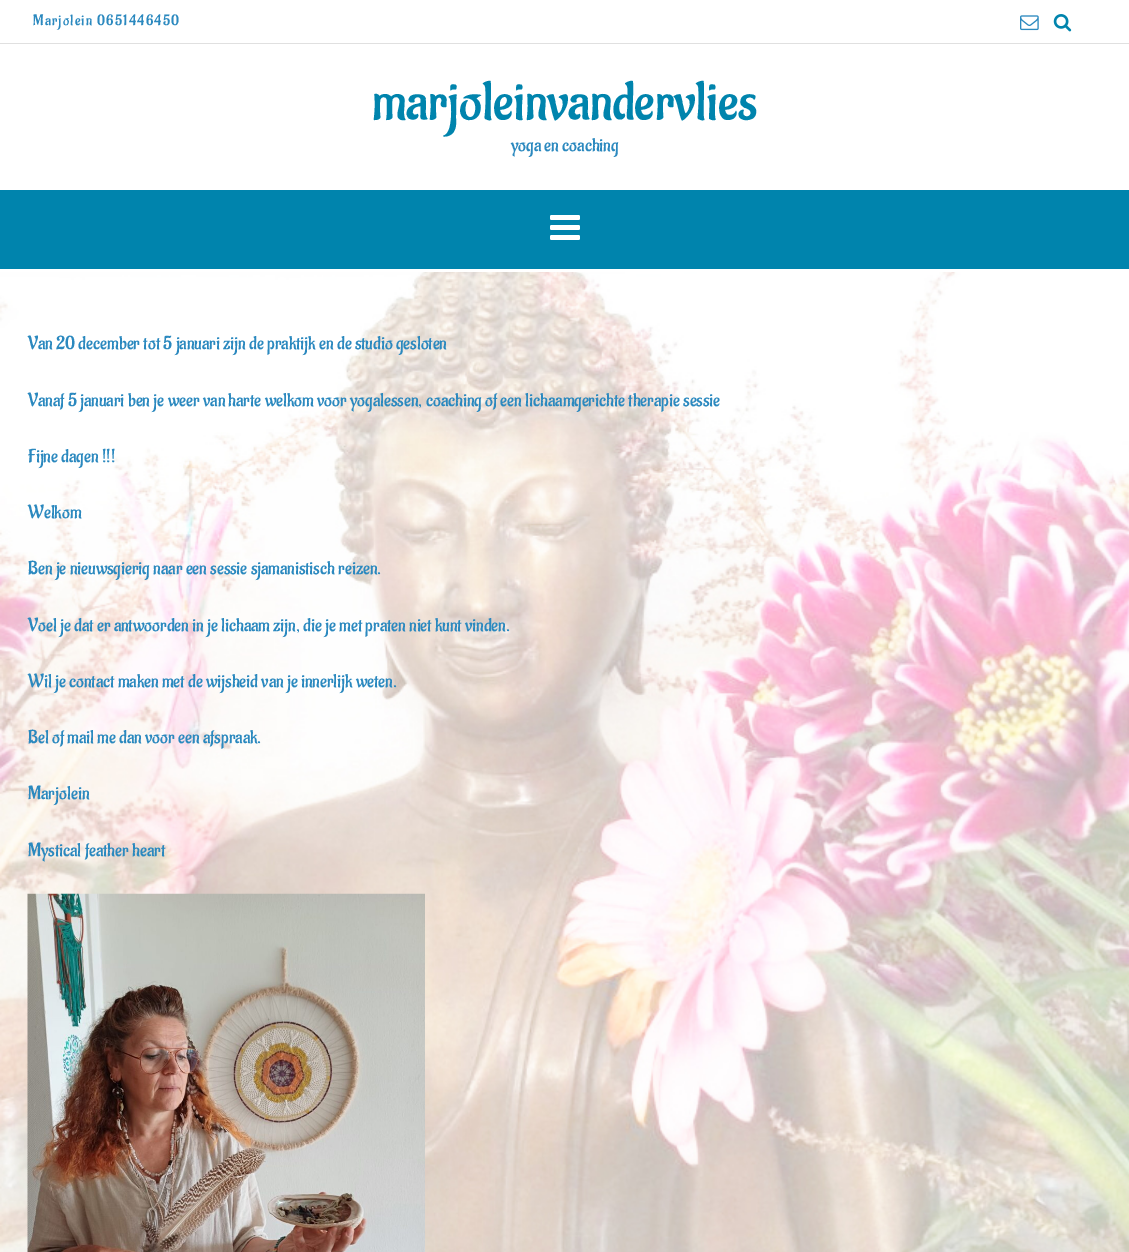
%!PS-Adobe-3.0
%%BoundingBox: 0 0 1129 1252
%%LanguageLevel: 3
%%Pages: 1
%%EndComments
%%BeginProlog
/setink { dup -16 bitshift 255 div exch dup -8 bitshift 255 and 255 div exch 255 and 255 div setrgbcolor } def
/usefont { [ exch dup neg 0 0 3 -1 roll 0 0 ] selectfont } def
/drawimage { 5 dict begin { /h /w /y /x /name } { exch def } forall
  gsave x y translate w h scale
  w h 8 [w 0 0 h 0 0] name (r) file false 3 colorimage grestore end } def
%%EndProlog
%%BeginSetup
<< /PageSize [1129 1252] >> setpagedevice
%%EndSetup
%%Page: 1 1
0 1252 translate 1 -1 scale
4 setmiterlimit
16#FFFFFF setink
0 0 1129 1252 rectfill
(img1.raw) 0 272 1129 980 drawimage
16#E0E0E0 setink
0 43 1129 1 rectfill
/Aladin-Regular 15 usefont
16#2B89BF setink
33 25 moveto 1.25 0 (Marjolein 0651446450) ashow
(img2.raw) 1020 15 19 16 drawimage
(img3.raw) 1053 14 19 18 drawimage
/Aladin-Regular 55 usefont
16#0084AD setink
372 119 moveto (marjoleinvandervlies) show
/Aladin-Regular 18.75 usefont
16#2B89BF setink
511 151 moveto (yoga en coaching) show
16#0084AD setink
0 190 1129 79 rectfill
(img4.raw) 550 215 30 25 drawimage
16#2B89BF setink
[
    [(Van 20 december tot 5 januari zijn de praktijk en de studio gesloten) 28 349]
    [(Vanaf 5 januari ben je weer van harte welkom voor yogalessen, coaching of een lichaamgerichte therapie sessie) 28 406]
    [(Fijne dagen !!!) 28 462]
    [(Welkom) 28 518]
    [(Ben je nieuwsgierig naar een sessie sjamanistisch reizen.) 28 574]
    [(Voel je dat er antwoorden in je lichaam zijn, die je met praten niet kunt vinden.) 28 631]
    [(Wil je contact maken met de wijsheid van je innerlijk weten.) 28 687]
    [(Bel of mail me dan voor een afspraak.) 28 743]
    [(Marjolein) 28 799]
    [(Mystical feather heart) 28 856]
] { aload pop moveto show } forall
(img5.raw) 27 893 398 359 drawimage
showpage
%%EOF
